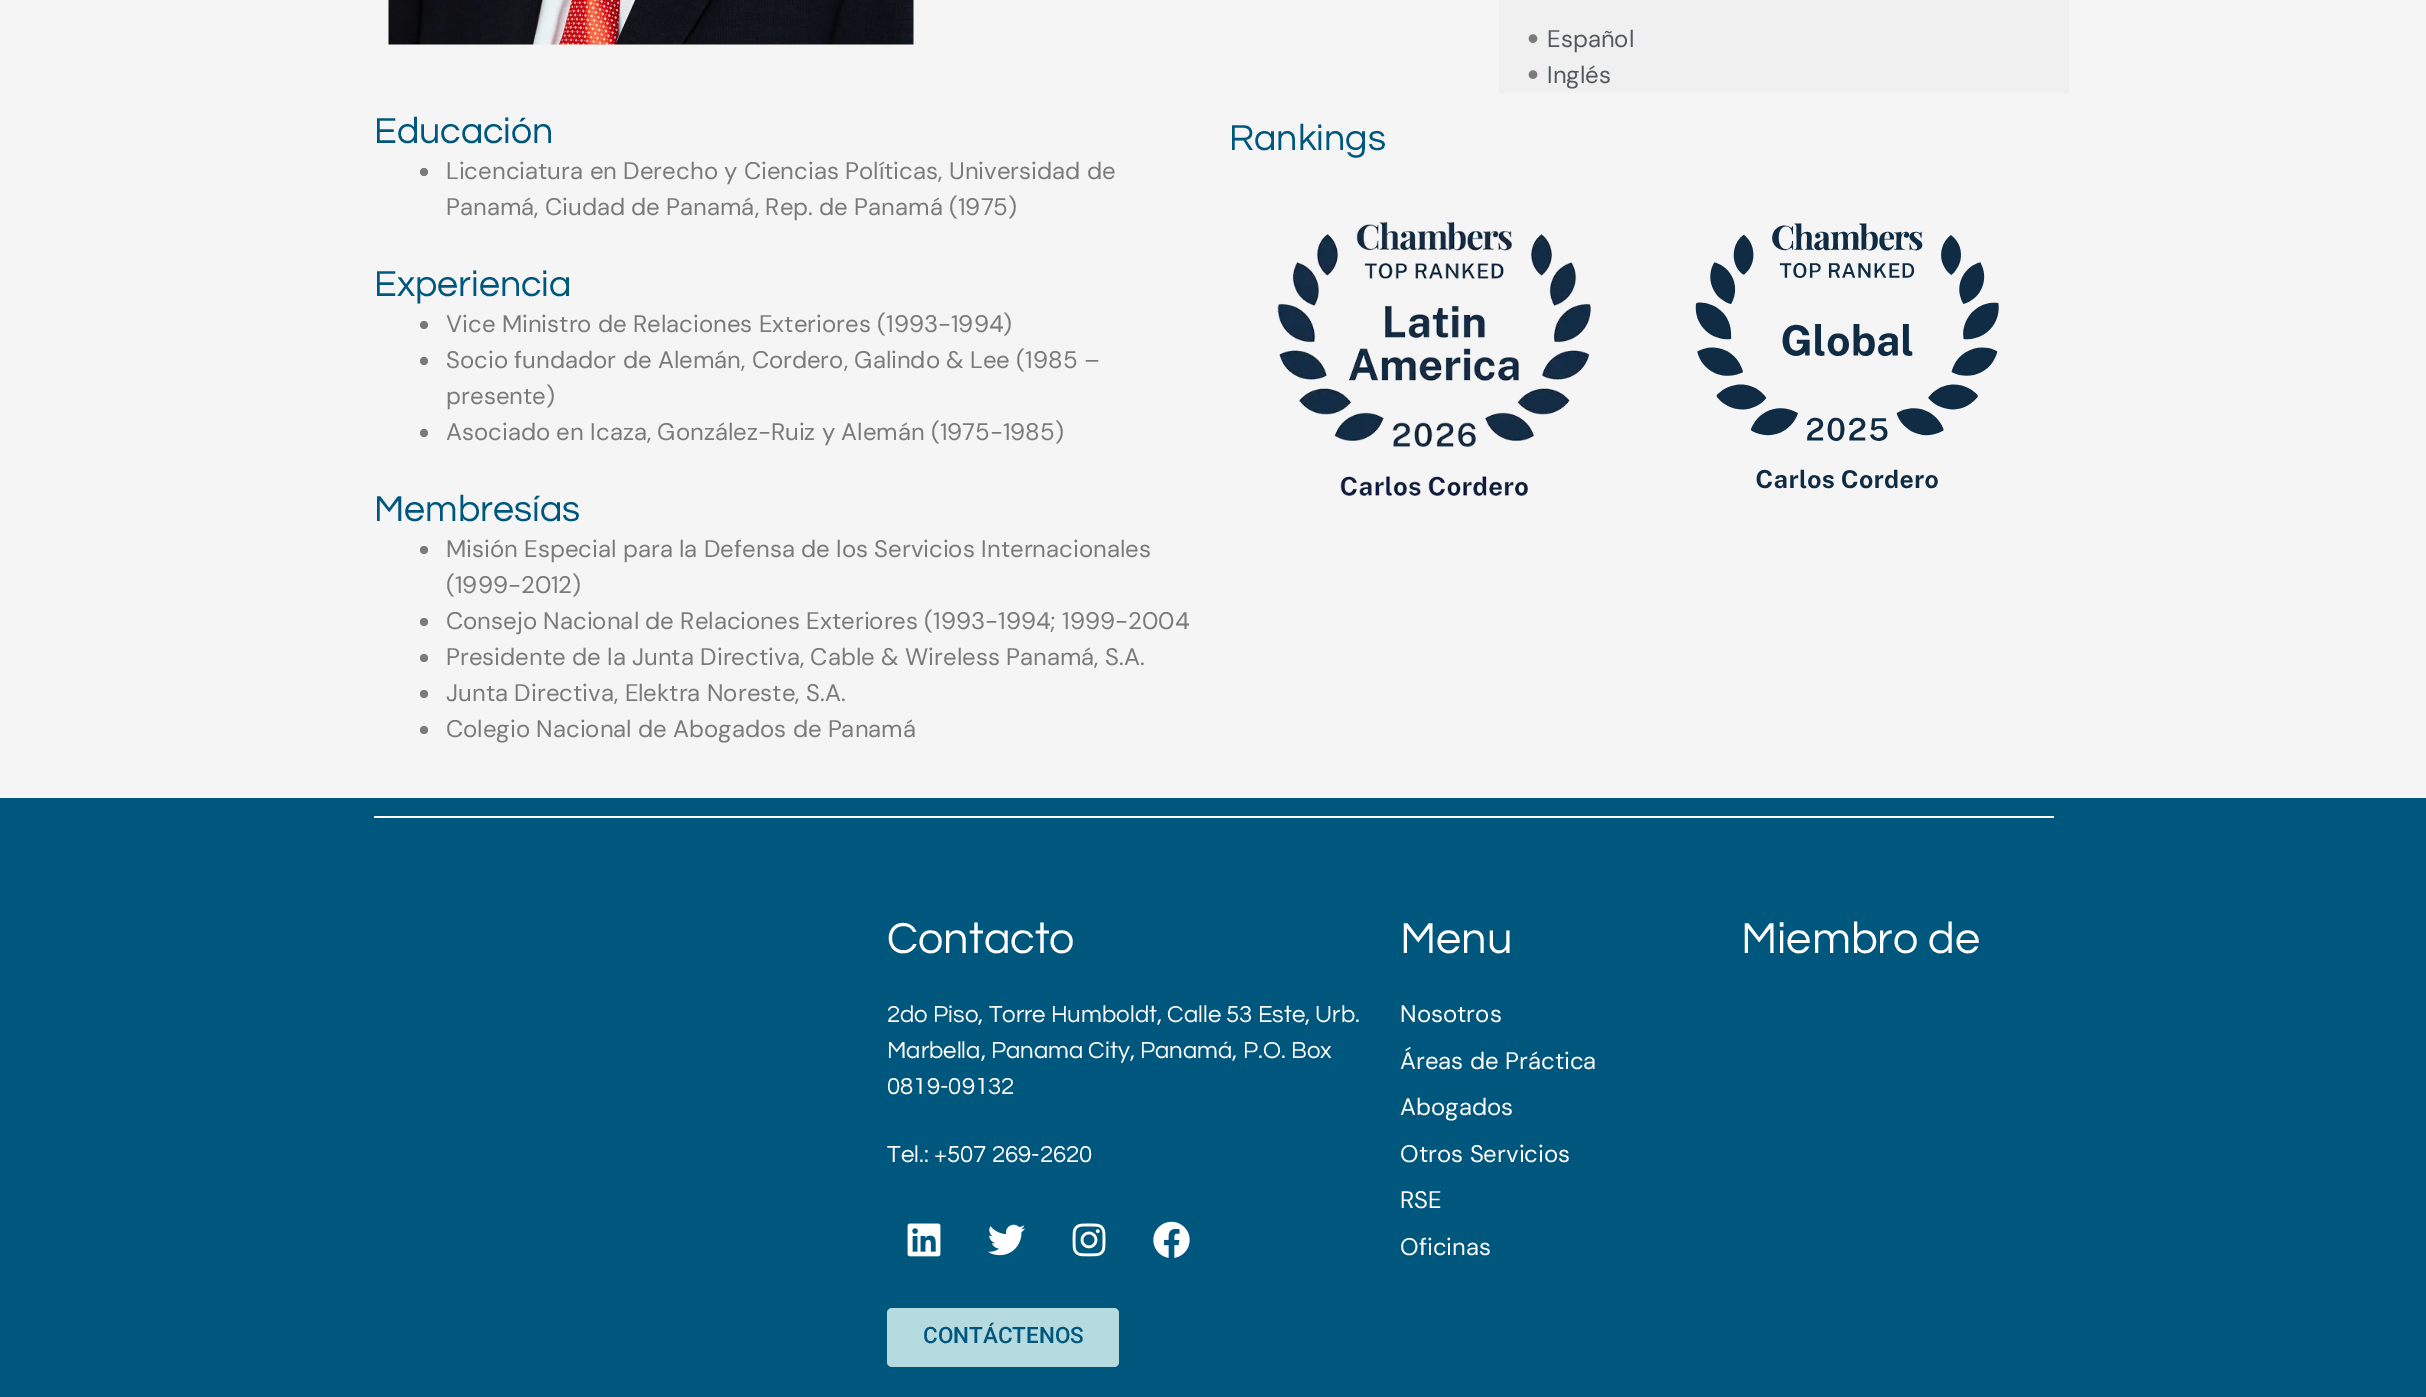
%!PS-Adobe-3.0
%%BoundingBox: 0 0 2426 1397
%%LanguageLevel: 3
%%Pages: 1
%%EndComments
%%BeginProlog
/setink { dup -16 bitshift 255 div exch dup -8 bitshift 255 and 255 div exch 255 and 255 div setrgbcolor } def
/usefont { [ exch dup neg 0 0 3 -1 roll 0 0 ] selectfont } def
/disc { newpath 0 360 arc closepath } def
/rrect { 5 dict begin { /r /h /w /y /x } { exch def } forall
  x r add y moveto x w add y 2 copy h add r arct x w add y h add x 1 index r arct
  x y h add x y r arct x y 2 copy exch w add exch r arct closepath end } def
/drawimage { 5 dict begin { /h /w /y /x /name } { exch def } forall
  gsave x y translate w h scale
  w h 8 [w 0 0 h 0 0] name (r) file false 3 colorimage grestore end } def
%%EndProlog
%%BeginSetup
<< /PageSize [2426 1397] >> setpagedevice
%%EndSetup
%%Page: 1 1
0 1397 translate 1 -1 scale
4 setmiterlimit
16#F5F5F5 setink
0 0 2426 1397 rectfill
(img1.raw) 388 0 526 45 drawimage
16#F0F0F0 setink
1499 0 570 93 rectfill
(img2.raw) 1528 34 10 9 drawimage
/DMSans-Regular 24 usefont
16#54595F setink
1547 47 moveto (Español) show
(img2.raw) 1528 70 10 9 drawimage
1547 83 moveto (Inglés) show
/Questrial-Regular 37.5 usefont
16#00577D setink
374 143 moveto (Educación) show
16#7A7A7A setink
424 172 4 disc fill
/DMSans-Regular 24 usefont
446 179 moveto (Licenciatura en Derecho y Ciencias Políticas, Universidad de) show
446 215 moveto (Panamá, Ciudad de Panamá, Rep. de Panamá \(1975\)) show
/Questrial-Regular 37.5 usefont
16#00577D setink
374 296 moveto (Experiencia) show
16#7A7A7A setink
424 325 4 disc fill
/DMSans-Regular 24 usefont
446 332 moveto (Vice Ministro de Relaciones Exteriores \(1993-1994\)) show
424 361 4 disc fill
446 368 moveto (Socio fundador de Alemán, Cordero, Galindo & Lee \(1985 –) show
446 404 moveto (presente\)) show
424 433 4 disc fill
446 440 moveto (Asociado en Icaza, González-Ruiz y Alemán \(1975-1985\)) show
/Questrial-Regular 37.5 usefont
16#00577D setink
374 521 moveto (Membresías) show
16#7A7A7A setink
424 550 4 disc fill
/DMSans-Regular 24 usefont
446 557 moveto (Misión Especial para la Defensa de los Servicios Internacionales) show
446 593 moveto (\(1999-2012\)) show
424 622 4 disc fill
446 629 moveto (Consejo Nacional de Relaciones Exteriores \(1993-1994; 1999-2004) show
424 658 4 disc fill
446 665 moveto (Presidente de la Junta Directiva, Cable & Wireless Panamá, S.A.) show
424 694 4 disc fill
446 701 moveto (Junta Directiva, Elektra Noreste, S.A.) show
424 730 4 disc fill
446 737 moveto (Colegio Nacional de Abogados de Panamá) show
/Questrial-Regular 37.5 usefont
16#00577D setink
1229 150 moveto (Rankings) show
(img3.raw) 1277 221 314 275 drawimage
(img4.raw) 1695 223 304 266 drawimage
0 798 2426 599 rectfill
16#FFFFFF setink
374 816 1680 2 rectfill
/Questrial-Regular 45 usefont
887 953 moveto (Contacto) show
/Questrial-Regular 24 usefont
[
    [(2do Piso, Torre Humboldt, Calle 53 Este, Urb.) 887 1022]
    [(Marbella, Panama City, Panamá, P.O. Box) 887 1058]
    [(0819-09132) 887 1094]
    [(Tel.: +507 269-2620) 887 1162]
] { aload pop moveto show } forall
(img5.raw) 907 1223 34 34 drawimage
(img6.raw) 988 1224 38 32 drawimage
(img7.raw) 1072 1223 34 34 drawimage
(img8.raw) 1153 1221 37 37 drawimage
16#B5DBE1 setink
887 1308 232 59 5 rrect fill
/Roboto-Medium 22.5 usefont
16#00577D setink
923 1343 moveto (CONTÁCTENOS) show
/Questrial-Regular 45 usefont
16#FFFFFF setink
1400 953 moveto (Menu) show
/DMSans-Regular 24 usefont
[
    [(Nosotros) 1400 1022]
    [(Áreas de Práctica) 1400 1069]
    [(Abogados) 1400 1115]
    [(Otros Servicios) 1400 1162]
    [(RSE) 1400 1208]
    [(Oficinas) 1400 1255]
] { aload pop moveto show } forall
/Questrial-Regular 45 usefont
1741 953 moveto (Miembro de) show
showpage
%%EOF
